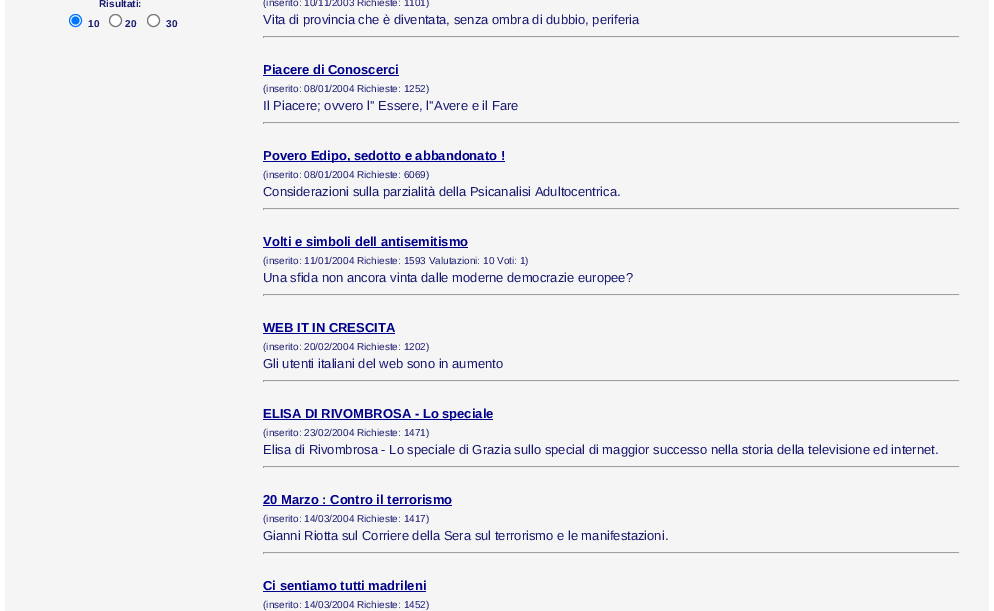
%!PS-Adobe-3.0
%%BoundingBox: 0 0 994 611
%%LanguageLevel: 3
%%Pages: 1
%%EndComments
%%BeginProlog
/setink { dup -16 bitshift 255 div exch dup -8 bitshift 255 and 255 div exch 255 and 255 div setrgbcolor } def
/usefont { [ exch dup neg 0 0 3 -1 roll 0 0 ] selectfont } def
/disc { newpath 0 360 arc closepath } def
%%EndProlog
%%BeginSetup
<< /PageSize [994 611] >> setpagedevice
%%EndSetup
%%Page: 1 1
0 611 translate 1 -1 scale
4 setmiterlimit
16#FFFFFF setink
0 0 994 611 rectfill
16#F5F5F5 setink
5 0 984 611 rectfill
/LiberationSans-Bold 10 usefont
16#191970 setink
99 7 moveto (Risultati:) show
16#FFFFFF setink
75.5 20.5 6 disc gsave fill grestore
16#0075FF setink
stroke
75.5 20.5 4 disc fill
16#191970 setink
88 27 moveto (10) show
16#FFFFFF setink
115.5 20.5 6 disc gsave fill grestore
16#767676 setink
stroke
16#191970 setink
125 27 moveto (20) show
16#FFFFFF setink
153.5 20.5 6 disc gsave fill grestore
16#767676 setink
stroke
16#191970 setink
166 27 moveto (30) show
/LiberationSans-Regular 10 usefont
263 6 moveto (\(inserito: 10/11/2003 Richieste: 1101\)) show
/LiberationSans-Regular 13 usefont
263 24 moveto (Vita di provincia che è diventata, senza ombra di dubbio, periferia) show
[
    [263 36 697 1 16#9F9F9F]
    [959 36 1 2 16#EEEEEE]
    [263 37 697 1 16#EEEEEE]
    [263 36 1 2 16#9F9F9F]
] { aload pop setink rectfill } forall
/LiberationSans-Bold 13 usefont
16#00008B setink
263 74 moveto (Piacere di Conoscerci) show
263 75 136 1 rectfill
/LiberationSans-Regular 10 usefont
16#191970 setink
263 92 moveto (\(inserito: 08/01/2004 Richieste: 1252\)) show
/LiberationSans-Regular 13 usefont
263 110 moveto (Il Piacere; ovvero l'' Essere, l''Avere e il Fare) show
[
    [263 122 697 1 16#9F9F9F]
    [959 122 1 2 16#EEEEEE]
    [263 123 697 1 16#EEEEEE]
    [263 122 1 2 16#9F9F9F]
    [263 161 242 1 16#00008B]
] { aload pop setink rectfill } forall
/LiberationSans-Bold 13 usefont
263 160 moveto (Povero Edipo, sedotto e abbandonato !) show
/LiberationSans-Regular 10 usefont
16#191970 setink
263 178 moveto (\(inserito: 08/01/2004 Richieste: 6069\)) show
/LiberationSans-Regular 13 usefont
263 196 moveto (Considerazioni sulla parzialità della Psicanalisi Adultocentrica.) show
[
    [263 208 697 1 16#9F9F9F]
    [959 208 1 2 16#EEEEEE]
    [263 209 697 1 16#EEEEEE]
    [263 208 1 2 16#9F9F9F]
] { aload pop setink rectfill } forall
/LiberationSans-Bold 13 usefont
16#00008B setink
263 246 moveto (Volti e simboli dell antisemitismo) show
263 247 205 1 rectfill
/LiberationSans-Regular 10 usefont
16#191970 setink
263 264 moveto (\(inserito: 11/01/2004 Richieste: 1593 Valutazioni: 10 Voti: 1\)) show
/LiberationSans-Regular 13 usefont
263 282 moveto (Una sfida non ancora vinta dalle moderne democrazie europee?) show
[
    [263 294 697 1 16#9F9F9F]
    [959 294 1 2 16#EEEEEE]
    [263 295 697 1 16#EEEEEE]
    [263 294 1 2 16#9F9F9F]
] { aload pop setink rectfill } forall
/LiberationSans-Bold 13 usefont
16#00008B setink
263 332 moveto (WEB IT IN CRESCITA) show
263 333 132 1 rectfill
/LiberationSans-Regular 10 usefont
16#191970 setink
263 350 moveto (\(inserito: 20/02/2004 Richieste: 1202\)) show
/LiberationSans-Regular 13 usefont
263 368 moveto (Gli utenti italiani del web sono in aumento) show
[
    [263 380 697 1 16#9F9F9F]
    [959 380 1 2 16#EEEEEE]
    [263 381 697 1 16#EEEEEE]
    [263 380 1 2 16#9F9F9F]
    [263 419 230 1 16#00008B]
] { aload pop setink rectfill } forall
/LiberationSans-Bold 13 usefont
263 418 moveto (ELISA DI RIVOMBROSA - Lo speciale) show
/LiberationSans-Regular 10 usefont
16#191970 setink
263 436 moveto (\(inserito: 23/02/2004 Richieste: 1471\)) show
/LiberationSans-Regular 13 usefont
263 454 moveto (Elisa di Rivombrosa - Lo speciale di Grazia sullo special di maggior successo nella storia della televisione ed internet.) show
[
    [263 466 697 1 16#9F9F9F]
    [959 466 1 2 16#EEEEEE]
    [263 467 697 1 16#EEEEEE]
    [263 466 1 2 16#9F9F9F]
] { aload pop setink rectfill } forall
/LiberationSans-Bold 13 usefont
16#00008B setink
263 504 moveto (20 Marzo : Contro il terrorismo) show
263 505 189 1 rectfill
/LiberationSans-Regular 10 usefont
16#191970 setink
263 522 moveto (\(inserito: 14/03/2004 Richieste: 1417\)) show
/LiberationSans-Regular 13 usefont
263 540 moveto (Gianni Riotta sul Corriere della Sera sul terrorismo e le manifestazioni.) show
[
    [263 552 697 1 16#9F9F9F]
    [959 552 1 2 16#EEEEEE]
    [263 553 697 1 16#EEEEEE]
    [263 552 1 2 16#9F9F9F]
] { aload pop setink rectfill } forall
/LiberationSans-Bold 13 usefont
16#00008B setink
263 590 moveto (Ci sentiamo tutti madrileni) show
263 591 163 1 rectfill
/LiberationSans-Regular 10 usefont
16#191970 setink
263 608 moveto (\(inserito: 14/03/2004 Richieste: 1452\)) show
showpage
%%EOF
